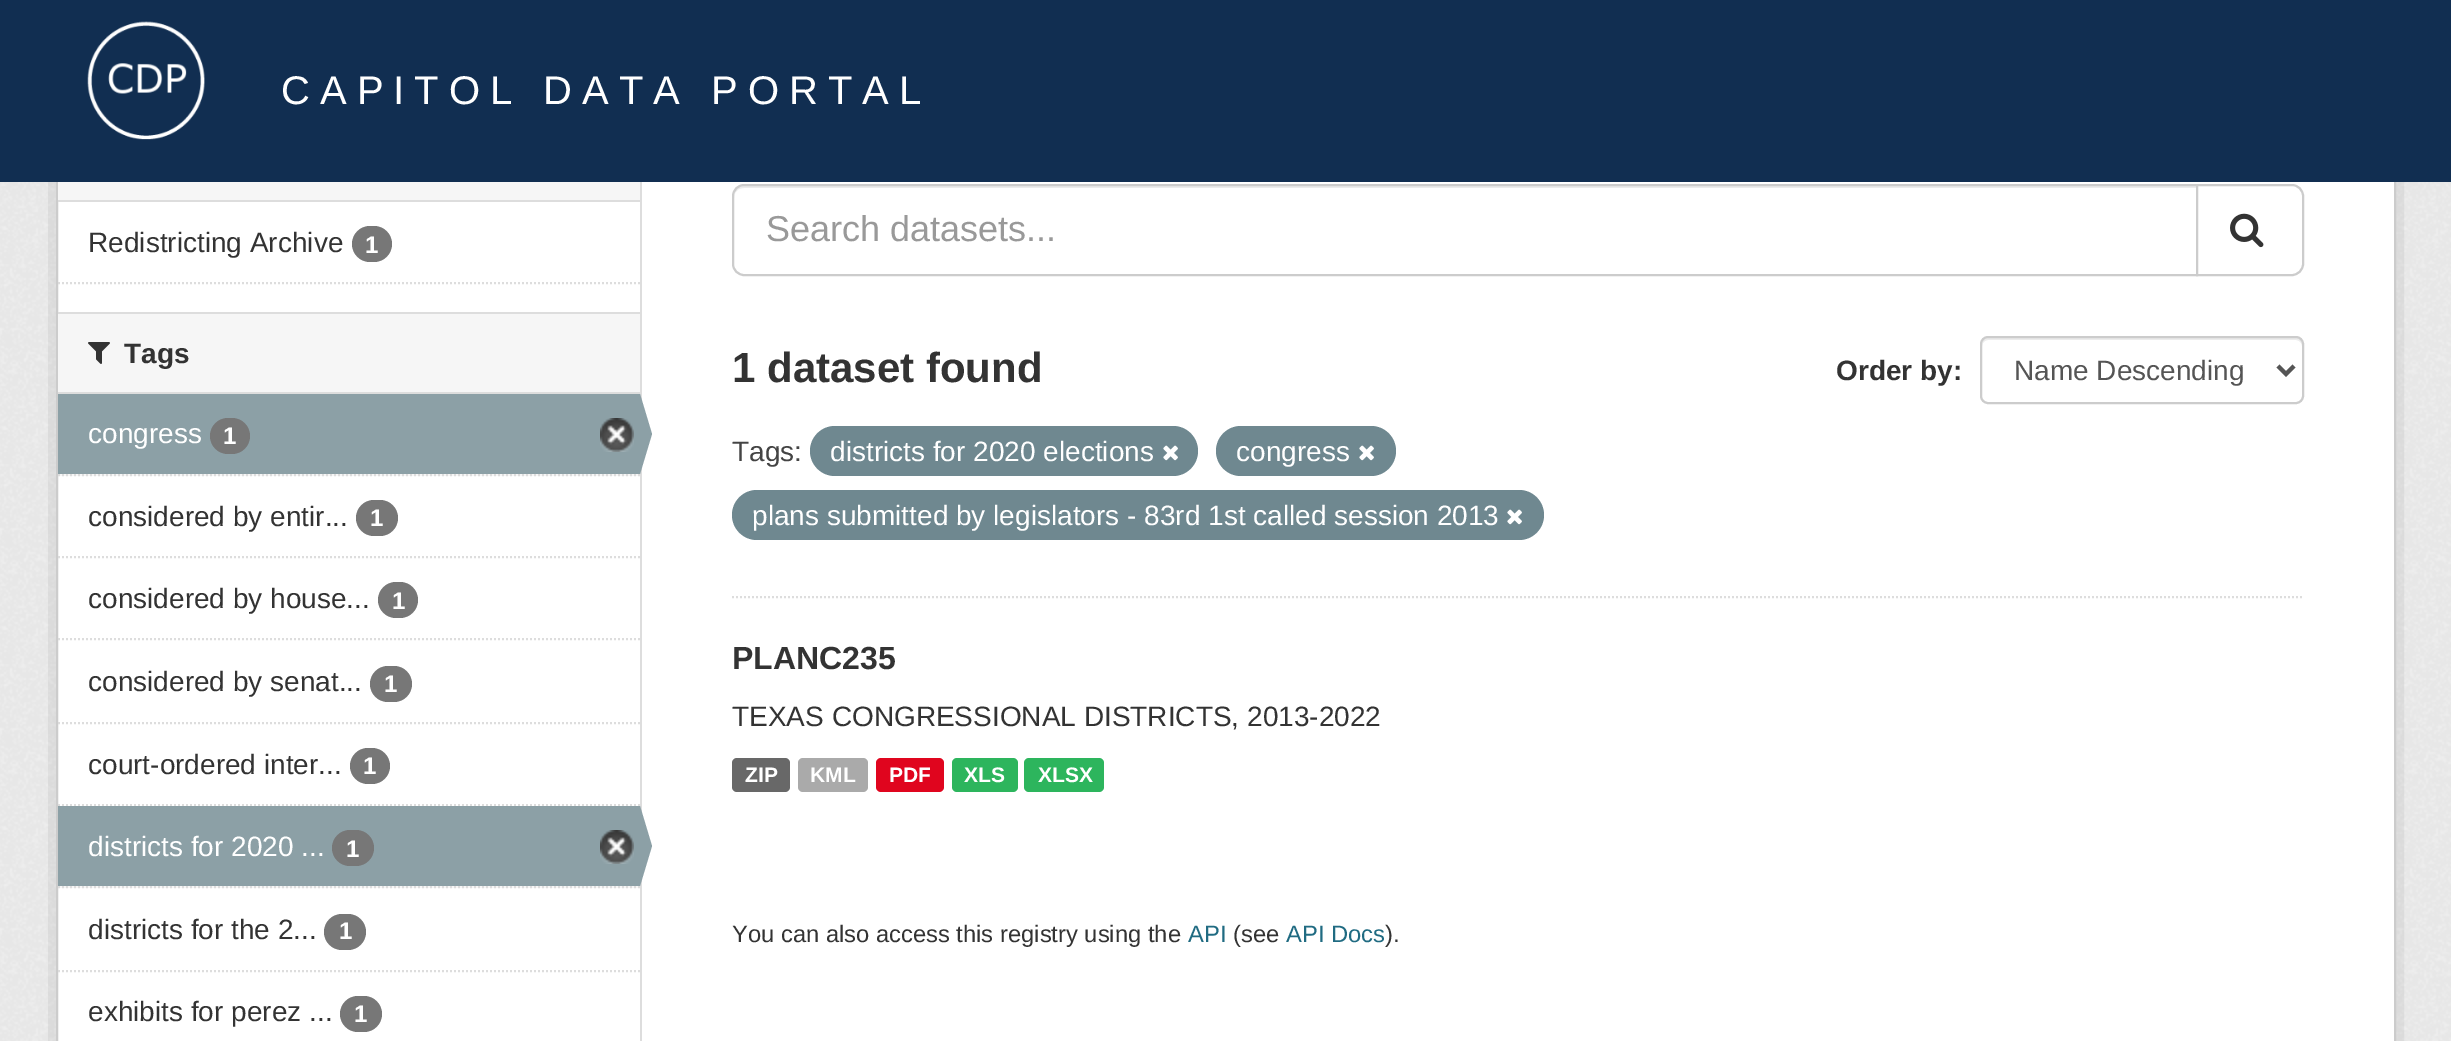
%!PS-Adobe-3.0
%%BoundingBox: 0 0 2451 1041
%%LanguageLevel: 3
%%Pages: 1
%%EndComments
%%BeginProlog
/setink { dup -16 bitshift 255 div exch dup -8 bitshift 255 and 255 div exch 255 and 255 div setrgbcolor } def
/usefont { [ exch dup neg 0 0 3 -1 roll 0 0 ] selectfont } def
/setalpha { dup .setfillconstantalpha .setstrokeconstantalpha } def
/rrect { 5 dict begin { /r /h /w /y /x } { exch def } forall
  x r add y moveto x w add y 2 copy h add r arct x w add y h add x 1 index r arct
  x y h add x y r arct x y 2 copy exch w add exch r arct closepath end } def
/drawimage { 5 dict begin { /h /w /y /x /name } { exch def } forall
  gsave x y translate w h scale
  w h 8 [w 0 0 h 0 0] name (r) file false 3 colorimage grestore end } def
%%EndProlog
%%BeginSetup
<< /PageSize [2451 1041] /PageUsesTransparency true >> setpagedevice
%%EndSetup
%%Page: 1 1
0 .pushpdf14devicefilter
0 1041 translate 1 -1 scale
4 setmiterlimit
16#EEEEEE setink
0 0 2451 1041 rectfill
(img2.raw) 0 182 2451 859 drawimage
0.05 setalpha
16#000000 setink
8 setlinewidth
52 118 2348 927 rectstroke
1 setalpha
16#FFFFFF setink
58 182 2336 859 rectfill
16#CCCCCC setink
2 setlinewidth
57 123 2338 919 rectstroke
16#112E51 setink
0 0 2451 182 rectfill
(img1.raw) 87 21 118 119 drawimage
/LiberationSans-Regular 40 usefont
16#FFFFFF setink
281 104 moveto 10 0 (CAPITOL DATA PORTAL) ashow
16#F6F6F6 setink
58 182 582 18 rectfill
16#DDDDDD setink
58 200 582 2 rectfill
/LiberationSans-Regular 28 usefont
16#333333 setink
88 252 moveto (Redistricting Archive) show
16#777777 setink
352 226 40 36 18 rrect fill
/LiberationSans-Bold 24 usefont
16#FFFFFF setink
365 253 moveto (1) show
16#DDDDDD setink
[2 2] 0 setdash
58 283 moveto 640 283 lineto stroke
[
    [58 314 582 78 16#F6F6F6]
    [58 312 582 2 16#DDDDDD]
    [58 392 582 2 16#DDDDDD]
] { aload pop setink rectfill } forall
(img3.raw) 88 342 22 22 drawimage
/LiberationSans-Bold 28 usefont
16#333333 setink
124 363 moveto (Tags) show
16#F6F6F6 setink
60 474 578 2 rectfill
16#DDDDDD setink
58 475 moveto 640 475 lineto stroke
16#8CA0A6 setink
58 394 582 80 rectfill
/LiberationSans-Regular 28 usefont
16#FFFFFF setink
88 443 moveto (congress) show
16#777777 setink
210 418 40 36 18 rrect fill
/LiberationSans-Bold 24 usefont
16#FFFFFF setink
223 444 moveto (1) show
(img4.raw) 600 418 34 34 drawimage
16#DDDDDD setink
640 182 2 859 rectfill
16#8CA0A6 setink
640 474 moveto 640 394 lineto 652 434 lineto closepath fill
16#DDDDDD setink
58 557 moveto 640 557 lineto stroke
/LiberationSans-Regular 28 usefont
16#333333 setink
88 526 moveto (considered by entir...) show
16#777777 setink
356 500 42 36 18 rrect fill
/LiberationSans-Bold 24 usefont
16#FFFFFF setink
370 526 moveto (1) show
16#DDDDDD setink
58 639 moveto 640 639 lineto stroke
/LiberationSans-Regular 28 usefont
16#333333 setink
88 608 moveto (considered by house...) show
16#777777 setink
378 582 40 36 18 rrect fill
/LiberationSans-Bold 24 usefont
16#FFFFFF setink
392 609 moveto (1) show
16#DDDDDD setink
58 723 moveto 640 723 lineto stroke
/LiberationSans-Regular 28 usefont
16#333333 setink
88 691 moveto (considered by senat...) show
16#777777 setink
370 666 42 36 18 rrect fill
/LiberationSans-Bold 24 usefont
16#FFFFFF setink
384 692 moveto (1) show
16#DDDDDD setink
58 805 moveto 640 805 lineto stroke
/LiberationSans-Regular 28 usefont
16#333333 setink
88 774 moveto (court-ordered inter...) show
16#777777 setink
350 748 40 36 18 rrect fill
/LiberationSans-Bold 24 usefont
16#FFFFFF setink
363 774 moveto (1) show
16#F6F6F6 setink
60 886 578 2 rectfill
16#DDDDDD setink
58 887 moveto 640 887 lineto stroke
16#8CA0A6 setink
58 806 582 80 rectfill
/LiberationSans-Regular 28 usefont
16#FFFFFF setink
88 856 moveto (districts for 2020 ...) show
16#777777 setink
332 830 42 36 18 rrect fill
/LiberationSans-Bold 24 usefont
16#FFFFFF setink
346 857 moveto (1) show
(img4.raw) 600 830 34 34 drawimage
16#8CA0A6 setink
640 886 moveto 640 806 lineto 652 846 lineto closepath fill
16#DDDDDD setink
58 971 moveto 640 971 lineto stroke
/LiberationSans-Regular 28 usefont
16#333333 setink
88 939 moveto (districts for the 2...) show
16#777777 setink
324 914 42 36 18 rrect fill
/LiberationSans-Bold 24 usefont
16#FFFFFF setink
339 939 moveto (1) show
/LiberationSans-Regular 28 usefont
16#333333 setink
88 1021 moveto (exhibits for perez ...) show
16#777777 setink
340 996 42 36 18 rrect fill
/LiberationSans-Bold 24 usefont
16#FFFFFF setink
354 1022 moveto (1) show
16#DDDDDD setink
732 597 moveto 2304 597 lineto stroke
16#ECECEC setink
744 188 moveto 2196 188 lineto 2196 186 lineto 744 186 lineto 737 186 734 192 734 198 curveto 734 192 738 188 744 188 curveto closepath fill
16#CCCCCC setink
[] 0 setdash
744 185 moveto 2197 185 lineto 2197 275 lineto 744 275 lineto 738 275 733 270 733 264 curveto 733 196 lineto 733 190 738 185 744 185 curveto closepath stroke
/LiberationSans-Regular 36 usefont
16#999999 setink
766 241 moveto (Search datasets...) show
16#FFFFFF setink
2197 185 moveto 2292 185 lineto 2298 185 2303 190 2303 196 curveto 2303 264 lineto 2303 270 2298 275 2292 275 curveto 2197 275 lineto closepath gsave fill grestore
16#CCCCCC setink
stroke
(img5.raw) 2230 213 34 35 drawimage
/LiberationSans-Bold 42 usefont
16#333333 setink
732 382 moveto (1 dataset found) show
/LiberationSans-Bold 28 usefont
1836 380 moveto (Order by:) show
16#ECECEC setink
1988 340 moveto 2296 340 lineto 2299 340 2302 343 2302 346 curveto 2302 342 2301 338 2296 338 curveto 1987 338 lineto 1983 339 1982 343 1982 346 curveto 1982 343 1985 340 1988 340 curveto closepath fill
16#CCCCCC setink
1981 337 322 66 7 rrect stroke
16#555555 setink
4 setlinewidth
2278 366 moveto 2286 374 lineto 2294 366 lineto stroke
/LiberationSans-Regular 28 usefont
2014 380 moveto (Name Descending) show
16#444444 setink
732 461 moveto (Tags:) show
16#6F8890 setink
810 426 388 50 25 rrect fill
16#FFFFFF setink
830 461 moveto (districts for 2020 elections) show
(img6.raw) 1163 445 15 16 drawimage
16#6F8890 setink
1216 426 180 50 25 rrect fill
16#FFFFFF setink
1236 461 moveto (congress) show
(img6.raw) 1359 445 15 16 drawimage
16#6F8890 setink
732 490 812 50 25 rrect fill
16#FFFFFF setink
752 525 moveto (plans submitted by legislators - 83rd 1st called session 2013) show
(img6.raw) 1507 509 15 16 drawimage
/LiberationSans-Bold 32 usefont
16#333333 setink
732 669 moveto (PLANC235) show
/LiberationSans-Regular 28 usefont
732 726 moveto (TEXAS CONGRESSIONAL DISTRICTS, 2013-2022) show
16#686868 setink
732 758 58 34 5 rrect fill
/LiberationSans-Bold 21 usefont
16#FFFFFF setink
745 782 moveto (ZIP) show
16#AAAAAA setink
798 758 70 34 5 rrect fill
16#FFFFFF setink
810 782 moveto (KML) show
16#E0051E setink
876 758 68 34 5 rrect fill
16#FFFFFF setink
889 782 moveto (PDF) show
16#2DB55D setink
952 758 66 34 5 rrect fill
16#FFFFFF setink
964 782 moveto (XLS) show
16#2DB55D setink
1024 758 80 34 5 rrect fill
16#FFFFFF setink
1038 782 moveto (XLSX) show
/LiberationSans-Regular 23.75 usefont
16#333333 setink
732 942 moveto (You can also access this registry using the) show
16#206B82 setink
1188 942 moveto (API) show
16#333333 setink
1233 942 moveto (\(see) show
16#206B82 setink
1286 942 moveto (API Docs) show
16#333333 setink
1385 942 moveto (\).) show
.poppdf14devicefilter showpage
%%EOF
